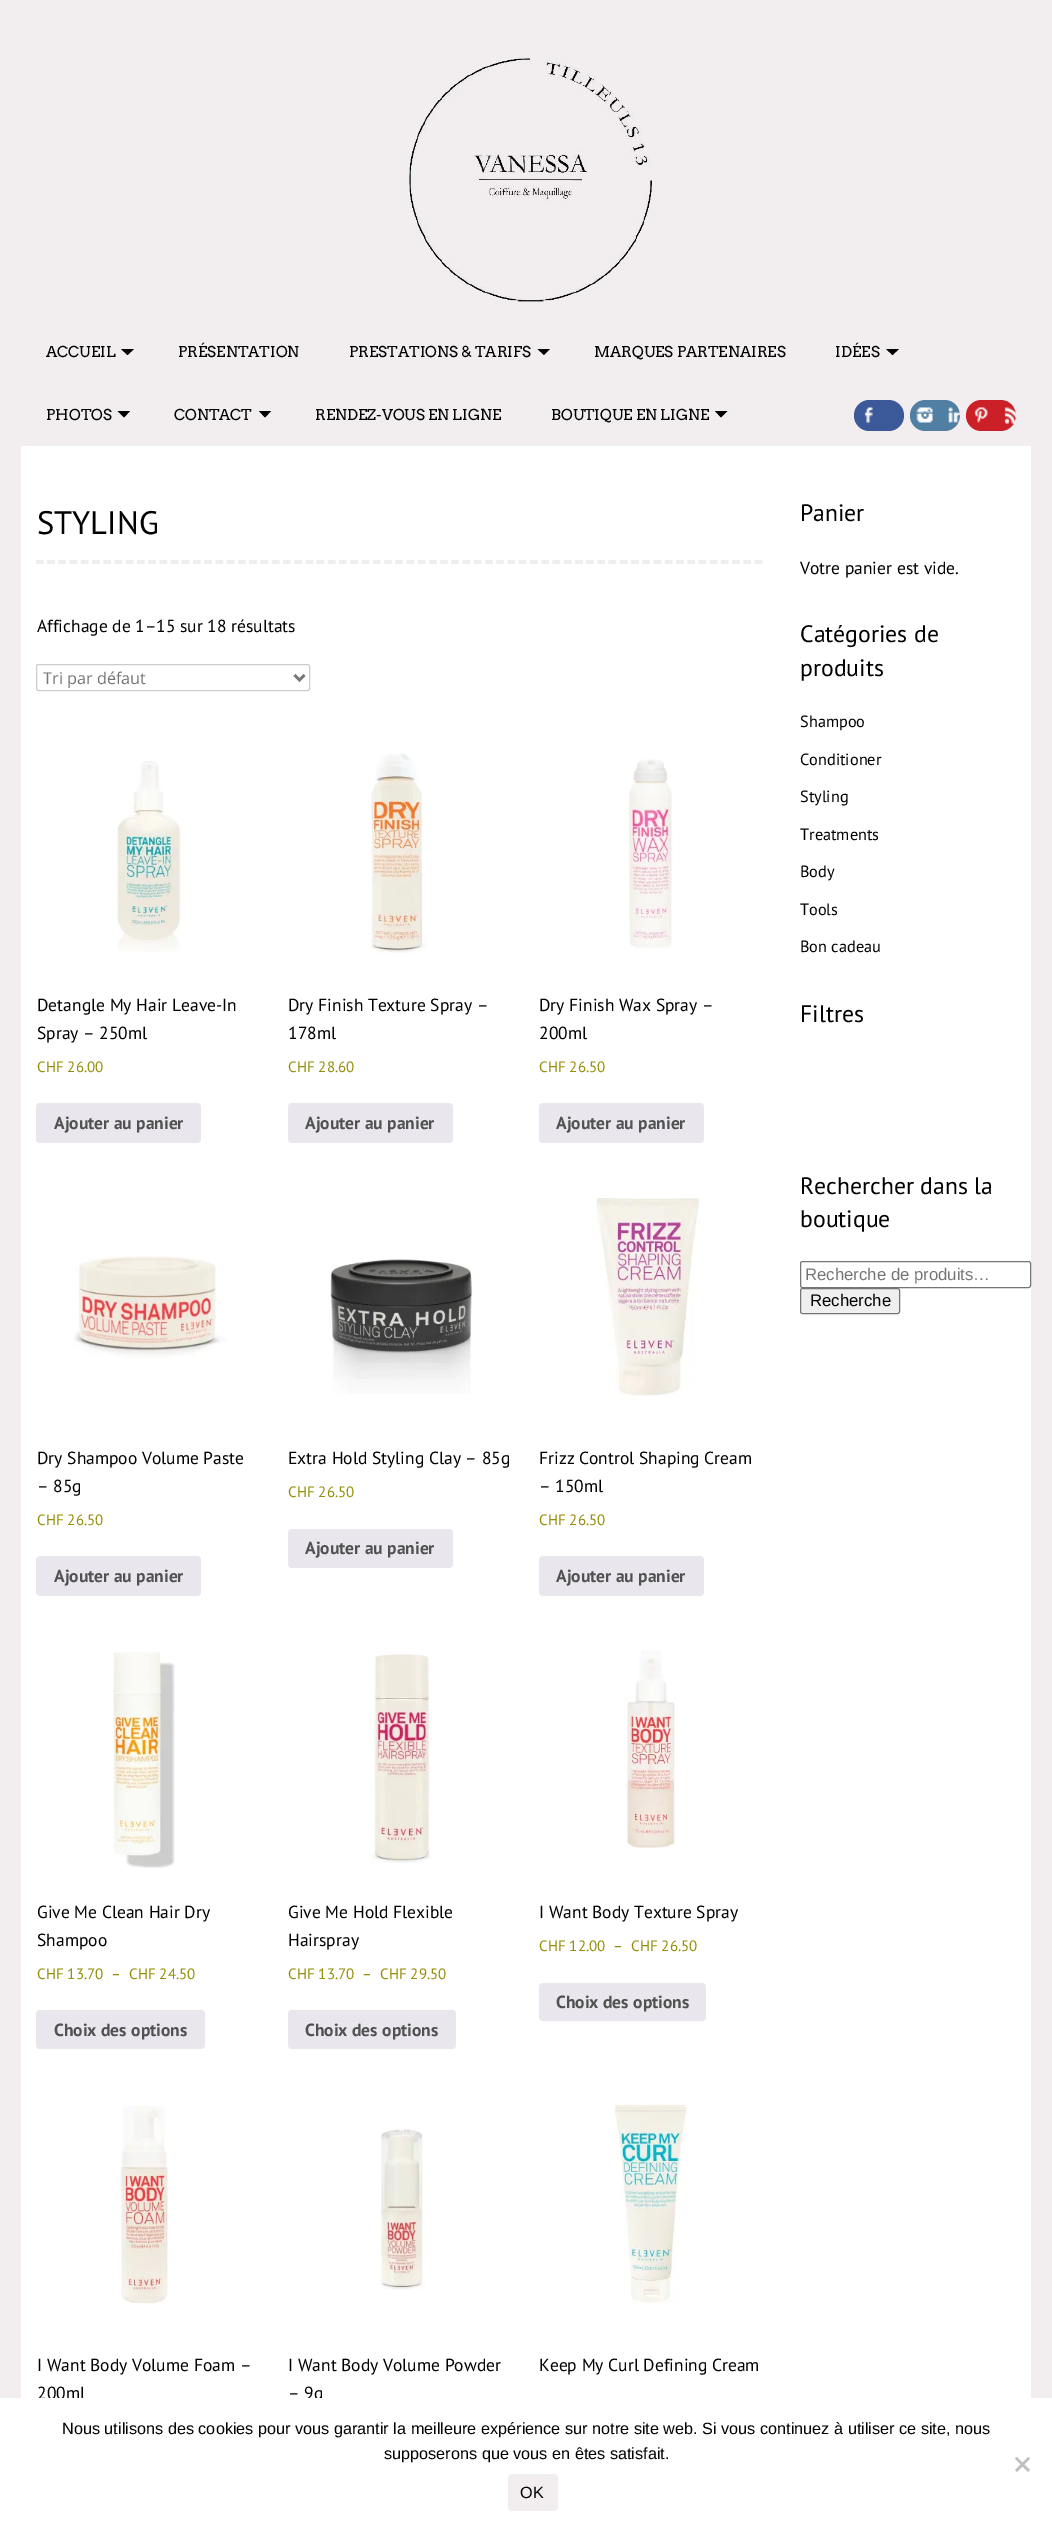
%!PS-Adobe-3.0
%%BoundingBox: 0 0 1052 2529
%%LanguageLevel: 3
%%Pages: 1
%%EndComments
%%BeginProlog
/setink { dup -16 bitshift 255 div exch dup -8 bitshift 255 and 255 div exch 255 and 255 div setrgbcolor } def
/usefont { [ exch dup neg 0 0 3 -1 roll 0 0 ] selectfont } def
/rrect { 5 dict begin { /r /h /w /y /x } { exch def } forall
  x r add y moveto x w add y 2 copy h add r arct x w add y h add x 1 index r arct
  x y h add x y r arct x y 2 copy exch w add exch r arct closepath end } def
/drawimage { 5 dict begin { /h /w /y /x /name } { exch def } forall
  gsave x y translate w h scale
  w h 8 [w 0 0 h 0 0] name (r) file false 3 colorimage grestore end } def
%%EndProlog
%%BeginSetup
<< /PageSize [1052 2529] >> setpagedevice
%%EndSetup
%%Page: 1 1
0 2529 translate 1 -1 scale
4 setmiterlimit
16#F2EEEF setink
0 0 1052 2529 rectfill
(img1.raw) 409 58 243 244 drawimage
/Arvo-Regular 15 usefont
16#000000 setink
46 357 moveto (ACCUEIL) show
121 349 moveto 134 349 lineto 127.5 355 lineto closepath fill
178 357 moveto (PRÉSENTATION) show
349 357 moveto (PRESTATIONS & TARIFS) show
537.5 349 moveto 550 349 lineto 544 355 lineto closepath fill
594 357 moveto (MARQUES PARTENAIRES) show
835 357 moveto (IDÉES) show
886 349 moveto 899 349 lineto 892.5 355 lineto closepath fill
46 420 moveto (PHOTOS) show
117.5 411 moveto 130 411 lineto 124 417.5 lineto closepath fill
174 420 moveto (CONTACT) show
259 411 moveto 271 411 lineto 265 417.5 lineto closepath fill
315 420 moveto (RENDEZ-VOUS EN LIGNE) show
551 420 moveto (BOUTIQUE EN LIGNE) show
715 411 moveto 727.5 411 lineto 721 417.5 lineto closepath fill
16#3B5998 setink
854 400 50 31 15.5 rrect fill
(img2.raw) 864 407 9 16 drawimage
16#517FA4 setink
910 400 50 31 15.5 rrect fill
(img3.raw) 916 407 44 16 drawimage
16#CB2027 setink
966 400 50 31 15.5 rrect fill
(img4.raw) 974 407 42 17 drawimage
16#FFFFFF setink
21 446 1010 1952 rectfill
16#EEEEEE setink
3.8 setlinewidth
[7.5 3.73] 0 setdash
36 562 moveto 762.5 562 lineto stroke
/PTSans-Regular 32.5 usefont
16#000000 setink
37 534 moveto (STYLING) show
/PTSans-Regular 17.5 usefont
37 632 moveto (Affichage de 1–15 sur 18 résultats) show
16#CCCCCC setink
1 setlinewidth
[] 0 setdash
36.5 664.5 273 26 2 rrect stroke
16#777777 setink
2.5 setlinewidth
294.5 675 moveto 299.5 680 lineto 304.5 675 lineto stroke
/OpenSans-Regular 16.25 usefont
16#757575 setink
43 684 moveto (Tri par défaut) show
(img5.raw) 117 761 66 191 drawimage
/PTSans-Regular 17.5 usefont
16#000000 setink
37 1011 moveto (Detangle My Hair Leave-In) show
37 1039 moveto (Spray – 250ml) show
/PTSans-Regular 15 usefont
16#958E09 setink
37 1072 moveto (CHF 26.00) show
16#E9E6ED setink
36 1103 165 40 4 rrect fill
/PTSans-Bold 17.5 usefont
16#515151 setink
54 1129 moveto (Ajouter au panier) show
(img6.raw) 371 753 56 200 drawimage
/PTSans-Regular 17.5 usefont
16#000000 setink
288 1011 moveto (Dry Finish Texture Spray –) show
288 1039 moveto (178ml) show
/PTSans-Regular 15 usefont
16#958E09 setink
288 1072 moveto (CHF 28.60) show
16#E9E6ED setink
288 1103 165 40 4 rrect fill
/PTSans-Bold 17.5 usefont
16#515151 setink
305 1129 moveto (Ajouter au panier) show
(img7.raw) 628 759 45 189 drawimage
/PTSans-Regular 17.5 usefont
16#000000 setink
539 1011 moveto (Dry Finish Wax Spray –) show
539 1039 moveto (200ml) show
/PTSans-Regular 15 usefont
16#958E09 setink
539 1072 moveto (CHF 26.50) show
16#E9E6ED setink
539 1103 165 40 4 rrect fill
/PTSans-Bold 17.5 usefont
16#515151 setink
556 1129 moveto (Ajouter au panier) show
(img8.raw) 74 1256 152 103 drawimage
/PTSans-Regular 17.5 usefont
16#000000 setink
37 1464 moveto (Dry Shampoo Volume Paste) show
37 1492 moveto (– 85g) show
/PTSans-Regular 15 usefont
16#958E09 setink
37 1525 moveto (CHF 26.50) show
16#E9E6ED setink
36 1556 165 40 4 rrect fill
/PTSans-Bold 17.5 usefont
16#515151 setink
54 1582 moveto (Ajouter au panier) show
(img9.raw) 329 1259 144 135 drawimage
/PTSans-Regular 17.5 usefont
16#000000 setink
288 1464 moveto (Extra Hold Styling Clay – 85g) show
/PTSans-Regular 15 usefont
16#958E09 setink
288 1497 moveto (CHF 26.50) show
16#E9E6ED setink
288 1529 165 39 4 rrect fill
/PTSans-Bold 17.5 usefont
16#515151 setink
305 1554 moveto (Ajouter au panier) show
(img10.raw) 596 1198 106 199 drawimage
/PTSans-Regular 17.5 usefont
16#000000 setink
539 1464 moveto (Frizz Control Shaping Cream) show
539 1492 moveto (– 150ml) show
/PTSans-Regular 15 usefont
16#958E09 setink
539 1525 moveto (CHF 26.50) show
16#E9E6ED setink
539 1556 165 40 4 rrect fill
/PTSans-Bold 17.5 usefont
16#515151 setink
556 1582 moveto (Ajouter au panier) show
(img11.raw) 113 1652 62 216 drawimage
/PTSans-Regular 17.5 usefont
16#000000 setink
37 1918 moveto (Give Me Clean Hair Dry) show
37 1946 moveto (Shampoo) show
/PTSans-Regular 15 usefont
16#958E09 setink
[
    [(CHF 13.70) 37 1979]
    [(–) 111 1979]
    [(CHF 24.50) 129 1979]
] { aload pop moveto show } forall
16#E9E6ED setink
36 2010 169 39 4 rrect fill
/PTSans-Bold 17.5 usefont
16#515151 setink
54 2036 moveto (Choix des options) show
(img12.raw) 369 1653 62 210 drawimage
/PTSans-Regular 17.5 usefont
16#000000 setink
288 1918 moveto (Give Me Hold Flexible) show
288 1946 moveto (Hairspray) show
/PTSans-Regular 15 usefont
16#958E09 setink
[
    [(CHF 13.70) 288 1979]
    [(–) 362 1979]
    [(CHF 29.50) 380 1979]
] { aload pop moveto show } forall
16#E9E6ED setink
288 2010 168 39 4 rrect fill
/PTSans-Bold 17.5 usefont
16#515151 setink
305 2036 moveto (Choix des options) show
(img13.raw) 626 1650 50 199 drawimage
/PTSans-Regular 17.5 usefont
16#000000 setink
539 1918 moveto (I Want Body Texture Spray) show
/PTSans-Regular 15 usefont
16#958E09 setink
[
    [(CHF 12.00) 539 1951]
    [(–) 613 1951]
    [(CHF 26.50) 631 1951]
] { aload pop moveto show } forall
16#E9E6ED setink
539 1983 167 38 4 rrect fill
/PTSans-Bold 17.5 usefont
16#515151 setink
556 2008 moveto (Choix des options) show
(img14.raw) 120 2106 49 199 drawimage
/PTSans-Regular 17.5 usefont
16#000000 setink
37 2371 moveto (I Want Body Volume Foam –) show
37 2399 moveto (200ml) show
(img15.raw) 379 2129 46 161 drawimage
288 2371 moveto (I Want Body Volume Powder) show
288 2399 moveto (– 9g) show
(img16.raw) 615 2104 72 200 drawimage
539 2371 moveto (Keep My Curl Defining Cream) show
/PTSans-Regular 23.75 usefont
800 521 moveto (Panier) show
/PTSans-Regular 17.5 usefont
800 574 moveto (Votre panier est vide.) show
/PTSans-Regular 23.75 usefont
800 642 moveto (Catégories de) show
800 676 moveto (produits) show
/PTSans-Regular 16.25 usefont
[
    [(Shampoo) 800 727]
    [(Conditioner) 800 765]
    [(Styling) 800 802]
    [(Treatments) 800 840]
    [(Body) 800 877]
    [(Tools) 800 915]
    [(Bon cadeau) 800 952]
] { aload pop moveto show } forall
/PTSans-Regular 23.75 usefont
[
    [(Filtres) 800 1022]
    [(Rechercher dans la) 800 1194]
    [(boutique) 800 1227]
] { aload pop moveto show } forall
16#767676 setink
1 setlinewidth
800.5 1261.5 230 26 2 rrect stroke
/LiberationSans-Regular 16.75 usefont
16#757575 setink
805 1280 moveto (Recherche de produits…) show
16#EFEFEF setink
800.5 1288.5 99 25 2 rrect gsave fill grestore
16#767676 setink
stroke
16#000000 setink
810 1306 moveto (Recherche) show
16#FFFFFF setink
0 2398 1052 131 rectfill
/LiberationSans-Regular 16.25 usefont
16#000000 setink
62 2434 moveto (Nous utilisons des cookies pour vous garantir la meilleure expérience sur notre site web. Si vous continuez à utiliser ce site, nous) show
384 2459 moveto (supposerons que vous en êtes satisfait.) show
16#C0C0C0 setink
1028 2457 moveto 1030 2458.5 lineto 1017 2472 lineto 1015 2470 lineto closepath fill
1015 2458.5 moveto 1017 2457 lineto 1030 2470 lineto 1028 2472 lineto closepath fill
16#F2EEEF setink
508 2474 50 37 4 rrect fill
16#000000 setink
520 2498 moveto (OK) show
showpage
%%EOF
